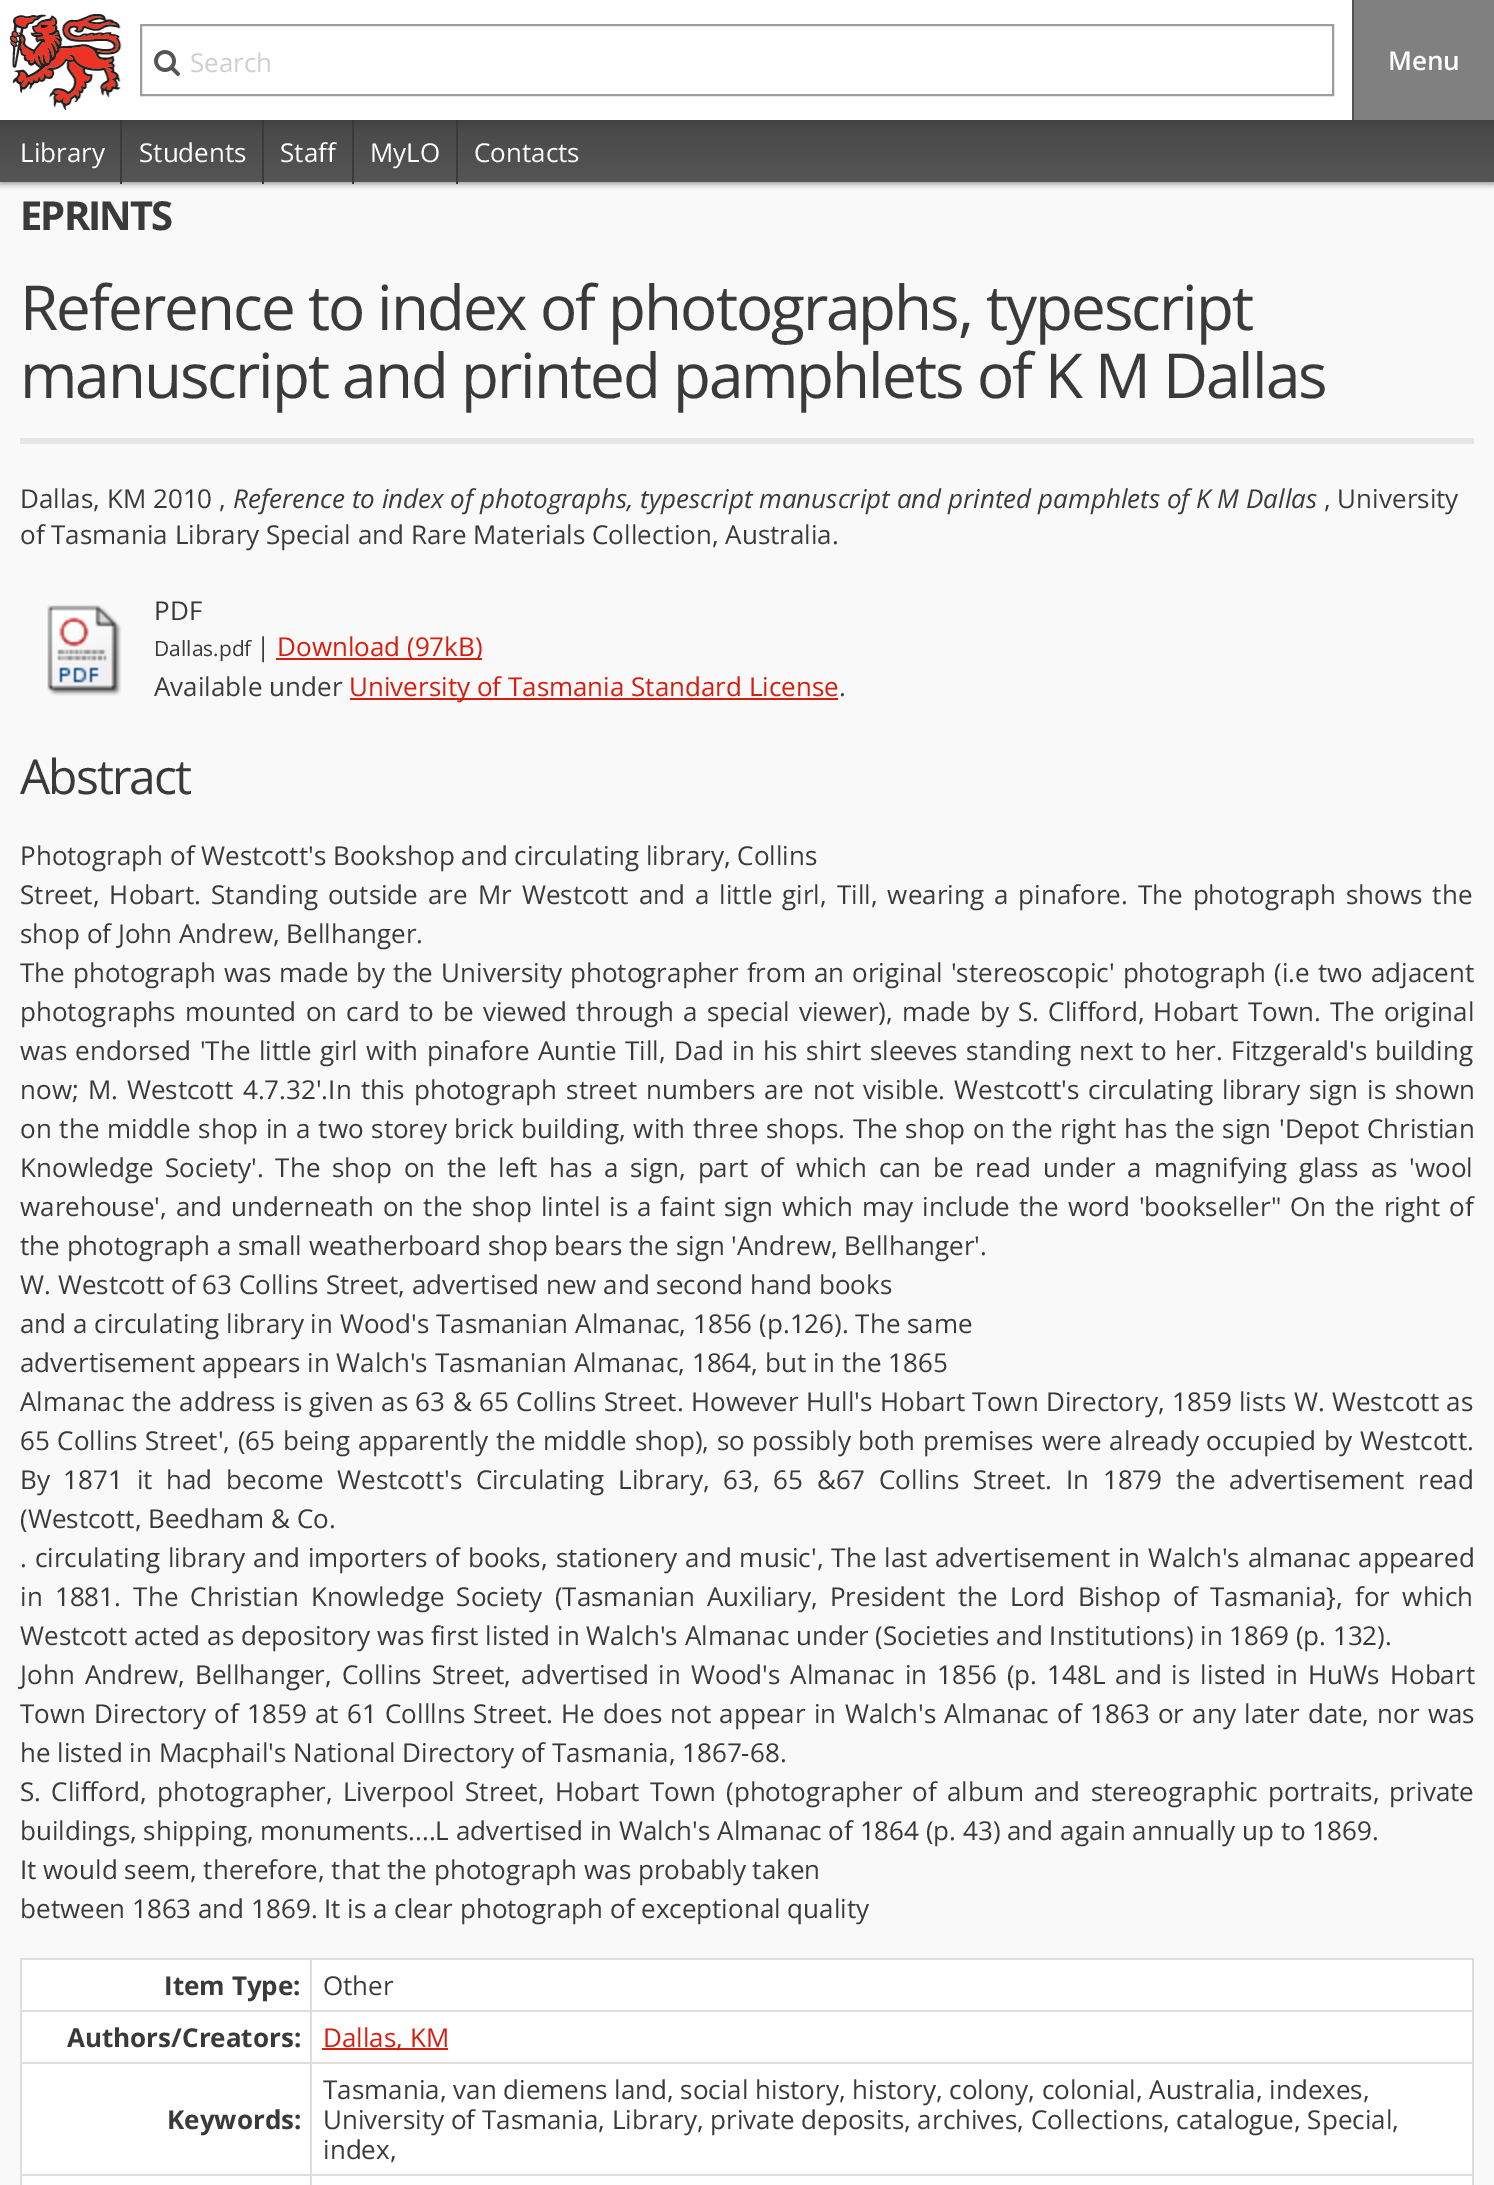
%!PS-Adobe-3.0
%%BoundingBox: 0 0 1494 2185
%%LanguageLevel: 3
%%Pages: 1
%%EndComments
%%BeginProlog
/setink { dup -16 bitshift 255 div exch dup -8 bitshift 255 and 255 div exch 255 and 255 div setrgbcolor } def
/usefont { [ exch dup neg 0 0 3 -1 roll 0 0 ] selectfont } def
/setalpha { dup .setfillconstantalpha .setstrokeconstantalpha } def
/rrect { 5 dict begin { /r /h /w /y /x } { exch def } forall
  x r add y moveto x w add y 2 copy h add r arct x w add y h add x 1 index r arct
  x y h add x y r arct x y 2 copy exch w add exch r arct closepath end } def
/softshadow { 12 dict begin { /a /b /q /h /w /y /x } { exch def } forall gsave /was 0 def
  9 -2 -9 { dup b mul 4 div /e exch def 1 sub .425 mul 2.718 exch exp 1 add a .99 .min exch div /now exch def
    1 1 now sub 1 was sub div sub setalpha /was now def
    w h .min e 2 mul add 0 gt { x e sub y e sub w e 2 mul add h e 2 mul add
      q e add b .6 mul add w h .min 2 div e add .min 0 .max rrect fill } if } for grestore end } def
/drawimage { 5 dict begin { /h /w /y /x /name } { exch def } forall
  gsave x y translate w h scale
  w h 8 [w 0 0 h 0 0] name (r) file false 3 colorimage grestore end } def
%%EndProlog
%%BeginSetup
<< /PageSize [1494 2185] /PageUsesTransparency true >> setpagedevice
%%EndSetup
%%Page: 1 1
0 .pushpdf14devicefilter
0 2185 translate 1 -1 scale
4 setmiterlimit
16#F9F9F9 setink
0 0 1494 2185 rectfill
16#000000 setink
0 122 1494 62 0 3 0.4 softshadow
gsave 0 120 moveto 1494 120 lineto 1494 182 lineto 0 182 lineto closepath clip newpath
<< /ShadingType 2 /ColorSpace /DeviceRGB /Coords [747 120 747 182] /Extend [true true] /Function << /FunctionType 2 /Domain [0 1] /C0 [0.282 0.282 0.282] /C1 [0.333 0.333 0.333] /N 1 >> >> shfill grestore
[
    [120 120 2 64 16#3B3B3B]
    [262 120 2 64 16#3B3B3B]
    [352 120 2 64 16#3B3B3B]
    [456 120 2 64 16#3B3B3B]
] { aload pop setink rectfill } forall
16#000000 setink
0 0 1494 120 0 5 0.2 softshadow
16#FFFFFF setink
0 0 1352 120 rectfill
(img1.raw) 10 14 112 96 drawimage
16#9D9D9D setink
2 setlinewidth
141 25 1192 70 rectstroke
(img2.raw) 154 50 26 26 drawimage
/OpenSans-Regular 26 usefont
16#CECECE setink
190 72 moveto (Search) show
16#808080 setink
1354 0 140 120 rectfill
16#555555 setink
1352 0 2 120 rectfill
/OpenSans-SemiBold 26 usefont
16#FFFFFF setink
1388 70 moveto (Menu) show
/OpenSans-Regular 26 usefont
[
    [(Library) 20 162]
    [(Students) 139 162]
    [(Staff) 280 162]
    [(MyLO) 370 162]
    [(Contacts) 474 162]
] { aload pop moveto show } forall
16#E5E5E5 setink
20 438 1454 6 rectfill
/OpenSans-Bold 40 usefont
16#3A3A3A setink
20 230 moveto -2 0 (EPRINTS) ashow
/OpenSans-Regular 62 usefont
20 330 moveto -2 0 (Reference to index of photographs, typescript) ashow
20 398 moveto -2 0 (manuscript and printed pamphlets of K M Dallas) ashow
/OpenSans-Regular 26 usefont
20 508 moveto (Dallas, KM 2010 ,) show
/OpenSans-Italic 26 usefont
233 508 moveto (Reference to index of photographs, typescript manuscript and printed pamphlets of K M Dallas) show
/OpenSans-Regular 26 usefont
1324 508 moveto (, University) show
20 544 moveto (of Tasmania Library Special and Rare Materials Collection, Australia.) show
(img3.raw) 47 605 75 91 drawimage
154 620 moveto (PDF) show
/OpenSans-Regular 21 usefont
154 656 moveto (Dallas.pdf) show
/OpenSans-Regular 26 usefont
256 656 moveto (|) show
16#D71D0D setink
276 658 206 2 rectfill
277 656 moveto (Download \(97kB\)) show
16#3A3A3A setink
154 696 moveto (Available under) show
16#D71D0D setink
350 698 488 2 rectfill
349 696 moveto (University of Tasmania Standard License) show
16#3A3A3A setink
839 696 moveto (.) show
/OpenSans-Regular 48 usefont
20 794 moveto -2 0 (Abstract) ashow
/OpenSans-Regular 26 usefont
20 865 moveto (Photograph of Westcott's Bookshop and circulating library, Collins) show
20 904 moveto 3.25 0 32 (Street, Hobart. Standing outside are Mr Westcott and a little girl, Till, wearing a pinafore. The photograph shows the) widthshow
20 943 moveto (shop of John Andrew, Bellhanger.) show
20 982 moveto 1.25 0 32 (The photograph was made by the University photographer from an original 'stereoscopic' photograph \(i.e two adjacent) widthshow
20 1021 moveto 2.4 0 32 (photographs mounted on card to be viewed through a special viewer\), made by S. Clifford, Hobart Town. The original) widthshow
20 1060 moveto 1.75 0 32 (was endorsed 'The little girl with pinafore Auntie Till, Dad in his shirt sleeves standing next to her. Fitzgerald's building) widthshow
20 1099 moveto 2.25 0 32 (now; M. Westcott 4.7.32'.In this photograph street numbers are not visible. Westcott's circulating library sign is shown) widthshow
20 1138 moveto 1 0 32 (on the middle shop in a two storey brick building, with three shops. The shop on the right has the sign 'Depot Christian) widthshow
20 1177 moveto 5 0 32 (Knowledge Society'. The shop on the left has a sign, part of which can be read under a magnifying glass as 'wool) widthshow
20 1216 moveto 2.1 0 32 (warehouse', and underneath on the shop lintel is a faint sign which may include the word 'bookseller" On the right of) widthshow
[
    [(the photograph a small weatherboard shop bears the sign 'Andrew, Bellhanger'.) 20 1255]
    [(W. Westcott of 63 Collins Street, advertised new and second hand books) 20 1294]
    [(and a circulating library in Wood's Tasmanian Almanac, 1856 \(p.126\). The same) 20 1333]
    [(advertisement appears in Walch's Tasmanian Almanac, 1864, but in the 1865) 20 1372]
] { aload pop moveto show } forall
20 1411 moveto 0.75 0 32 (Almanac the address is given as 63 & 65 Collins Street. However Hull's Hobart Town Directory, 1859 lists W. Westcott as) widthshow
20 1450 moveto 0.9 0 32 (65 Collins Street', \(65 being apparently the middle shop\), so possibly both premises were already occupied by Westcott.) widthshow
20 1489 moveto 6.9 0 32 (By 1871 it had become Westcott's Circulating Library, 63, 65 &67 Collins Street. In 1879 the advertisement read) widthshow
20 1528 moveto (\(Westcott, Beedham & Co.) show
20 1567 moveto 1.2 0 32 (. circulating library and importers of books, stationery and music', The last advertisement in Walch's almanac appeared) widthshow
20 1606 moveto 5.5 0 32 (in 1881. The Christian Knowledge Society \(Tasmanian Auxiliary, President the Lord Bishop of Tasmania}, for which) widthshow
20 1645 moveto (Westcott acted as depository was first listed in Walch's Almanac under \(Societies and Institutions\) in 1869 \(p. 132\).) show
20 1684 moveto 3.25 0 32 (John Andrew, Bellhanger, Collins Street, advertised in Wood's Almanac in 1856 \(p. 148L and is listed in HuWs Hobart) widthshow
20 1723 moveto 1.6 0 32 (Town Directory of 1859 at 61 Colllns Street. He does not appear in Walch's Almanac of 1863 or any later date, nor was) widthshow
20 1762 moveto (he listed in Macphail's National Directory of Tasmania, 1867-68.) show
20 1801 moveto 3.4 0 32 (S. Clifford, photographer, Liverpool Street, Hobart Town \(photographer of album and stereographic portraits, private) widthshow
[
    [(buildings, shipping, monuments....L advertised in Walch's Almanac of 1864 \(p. 43\) and again annually up to 1869.) 20 1840]
    [(It would seem, therefore, that the photograph was probably taken) 20 1879]
    [(between 1863 and 1869. It is a clear photograph of exceptional quality) 20 1918]
] { aload pop moveto show } forall
[
    [22 1960 1450 225 16#FFFFFF]
    [20 1958 1454 2 16#DDDDDD]
    [1472 1958 2 227 16#DDDDDD]
    [20 1960 2 50 16#DDDDDD]
] { aload pop setink rectfill } forall
/OpenSans-Bold 26 usefont
16#3A3A3A setink
164 1995 moveto (Item Type:) show
16#DDDDDD setink
310 1960 2 50 rectfill
/OpenSans-Regular 26 usefont
16#3A3A3A setink
323 1995 moveto (Other) show
16#DDDDDD setink
20 2010 1452 2 rectfill
20 2010 2 52 rectfill
/OpenSans-Bold 26 usefont
16#3A3A3A setink
67 2047 moveto (Authors/Creators:) show
16#DDDDDD setink
310 2010 2 52 rectfill
16#D71D0D setink
322 2048 126 2 rectfill
/OpenSans-Regular 26 usefont
323 2047 moveto (Dallas, KM) show
16#DDDDDD setink
20 2062 1452 2 rectfill
20 2062 2 112 rectfill
/OpenSans-Bold 26 usefont
16#3A3A3A setink
167 2129 moveto (Keywords:) show
16#DDDDDD setink
310 2062 2 112 rectfill
/OpenSans-Regular 26 usefont
16#3A3A3A setink
[
    [(Tasmania, van diemens land, social history, history, colony, colonial, Australia, indexes,) 323 2099]
    [(University of Tasmania, Library, private deposits, archives, Collections, catalogue, Special,) 323 2129]
    [(index,) 323 2159]
] { aload pop moveto show } forall
[
    [20 2174 1452 2 16#DDDDDD]
    [20 2174 2 11 16#DDDDDD]
    [310 2174 2 11 16#DDDDDD]
] { aload pop setink rectfill } forall
.poppdf14devicefilter showpage
%%EOF
